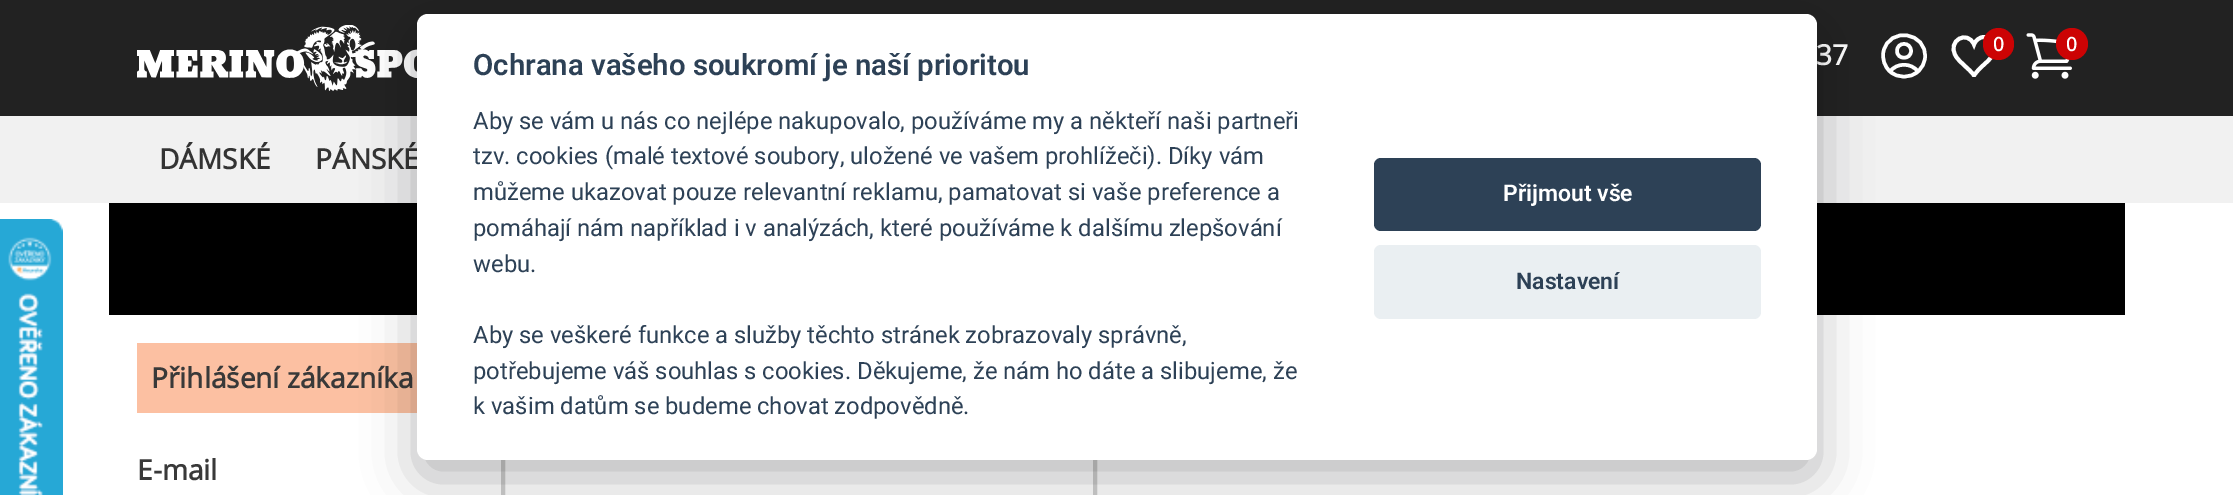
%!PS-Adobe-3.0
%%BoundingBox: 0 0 2233 495
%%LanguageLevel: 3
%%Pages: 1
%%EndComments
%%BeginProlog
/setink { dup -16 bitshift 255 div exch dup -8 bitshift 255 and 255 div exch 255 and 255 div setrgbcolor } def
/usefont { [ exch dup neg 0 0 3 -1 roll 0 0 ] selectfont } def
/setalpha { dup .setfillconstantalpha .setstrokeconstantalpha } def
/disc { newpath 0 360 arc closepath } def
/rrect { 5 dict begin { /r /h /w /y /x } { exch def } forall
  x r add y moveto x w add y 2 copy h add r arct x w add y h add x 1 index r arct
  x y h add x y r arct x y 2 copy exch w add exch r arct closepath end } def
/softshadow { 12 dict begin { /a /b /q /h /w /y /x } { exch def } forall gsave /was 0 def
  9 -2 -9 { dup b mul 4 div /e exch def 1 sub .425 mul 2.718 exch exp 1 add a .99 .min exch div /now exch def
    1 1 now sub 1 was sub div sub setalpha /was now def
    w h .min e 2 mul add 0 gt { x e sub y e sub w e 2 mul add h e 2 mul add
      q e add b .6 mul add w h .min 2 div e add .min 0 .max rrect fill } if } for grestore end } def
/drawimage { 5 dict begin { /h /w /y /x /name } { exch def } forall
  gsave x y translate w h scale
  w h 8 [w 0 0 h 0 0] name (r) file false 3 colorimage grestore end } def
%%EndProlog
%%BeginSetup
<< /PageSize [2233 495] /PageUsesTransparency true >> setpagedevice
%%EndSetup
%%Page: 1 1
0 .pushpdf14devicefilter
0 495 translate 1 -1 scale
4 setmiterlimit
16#FFFFFF setink
0 0 2233 495 rectfill
16#222222 setink
0 0 2233 116 rectfill
(img1.raw) 137 25 280 66 drawimage
/OpenSans-Bold 28 usefont
16#FFFFFF setink
1816 65 moveto (37) show
3.5 setlinewidth
1 setlinecap
1 setlinejoin
1918 71.5 moveto 1911 62.5 1897 62.5 1890 71.5 curveto 1918 71.5 moveto 1922 68 1924.5 63 1925 58 curveto 1927.5 32 1889 26 1883.5 51.5 curveto 1882 59 1884.5 66.5 1890 71.5 curveto 1918 71.5 moveto 1910 78.5 1898 78.5 1890 71.5 curveto 1911 51 moveto 1911 60 1897 60 1897 51 curveto 1897 41.5 1911 41.5 1911 51 curveto closepath stroke
gsave
1950 33 49 44 rectclip
3.9 setlinewidth
0 setlinecap
0 setlinejoin
1984 37 moveto 1979.5 37 1975.5 40.5 1974 44.5 curveto 1967.5 29.5 1947 40.5 1955.5 55.5 curveto 1959.5 63 1969 68 1974 75.5 curveto 1982 63.5 1994.5 59.5 1994.5 48 curveto 1994.5 42 1989.5 37 1984 37 curveto closepath stroke
grestore
16#CC0304 setink
1983 28 31 32 15.5 rrect fill
/OpenSans-Bold 19 usefont
16#FFFFFF setink
1993 51 moveto (0) show
(img2.raw) 2026 33 46 46 drawimage
16#CC0304 setink
2072 44 16 disc fill
16#FFFFFF setink
2066 51 moveto (0) show
16#F1F1F1 setink
0 116 2233 87 rectfill
/OpenSans-Bold 28 usefont
16#333333 setink
159 169 moveto (DÁMSKÉ) show
315 169 moveto (PÁNSKÉ) show
(img3.raw) 0 219 63 276 drawimage
16#000000 setink
109 203 2016 112 rectfill
16#FCC0A2 setink
137 343 280 70 rectfill
16#393939 setink
151 388 moveto (Přihlášení zákazníka) show
137 480 moveto (E-mail) show
16#CFCFCF setink
4 setlinewidth
0 setlinecap
0 setlinejoin
503 450 592 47 rectstroke
16#020203 setink
417 32 1400 446 11 26 0.28 softshadow
16#FFFFFF setink
417 14 1400 446 11 rrect fill
/Roboto-SemiBold 29.4 usefont
16#2D4156 setink
473 75 moveto (Ochrana vašeho soukromí je naší prioritou) show
/Roboto-Regular 23.8 usefont
[
    [(Aby se vám u nás co nejlépe nakupovalo, používáme my a někteří naši partneři) 473 129]
    [(tzv. cookies \(malé textové soubory, uložené ve vašem prohlížeči\). Díky vám) 473 164]
    [(můžeme ukazovat pouze relevantní reklamu, pamatovat si vaše preference a) 473 200]
    [(pomáhají nám například i v analýzách, které používáme k dalšímu zlepšování) 473 236]
    [(webu.) 473 272]
    [(Aby se veškeré funkce a služby těchto stránek zobrazovaly správně,) 473 343]
    [(potřebujeme váš souhlas s cookies. Děkujeme, že nám ho dáte a slibujeme, že) 473 379]
    [(k vašim datům se budeme chovat zodpovědně.) 473 414]
] { aload pop moveto show } forall
1374 158 387 73 7 rrect fill
/Roboto-SemiBold 23 usefont
16#FFFFFF setink
1503 201 moveto (Přijmout vše) show
16#EAEFF2 setink
1374 245 387 74 7 rrect fill
16#2D4156 setink
1516 289 moveto (Nastavení) show
.poppdf14devicefilter showpage
%%EOF
